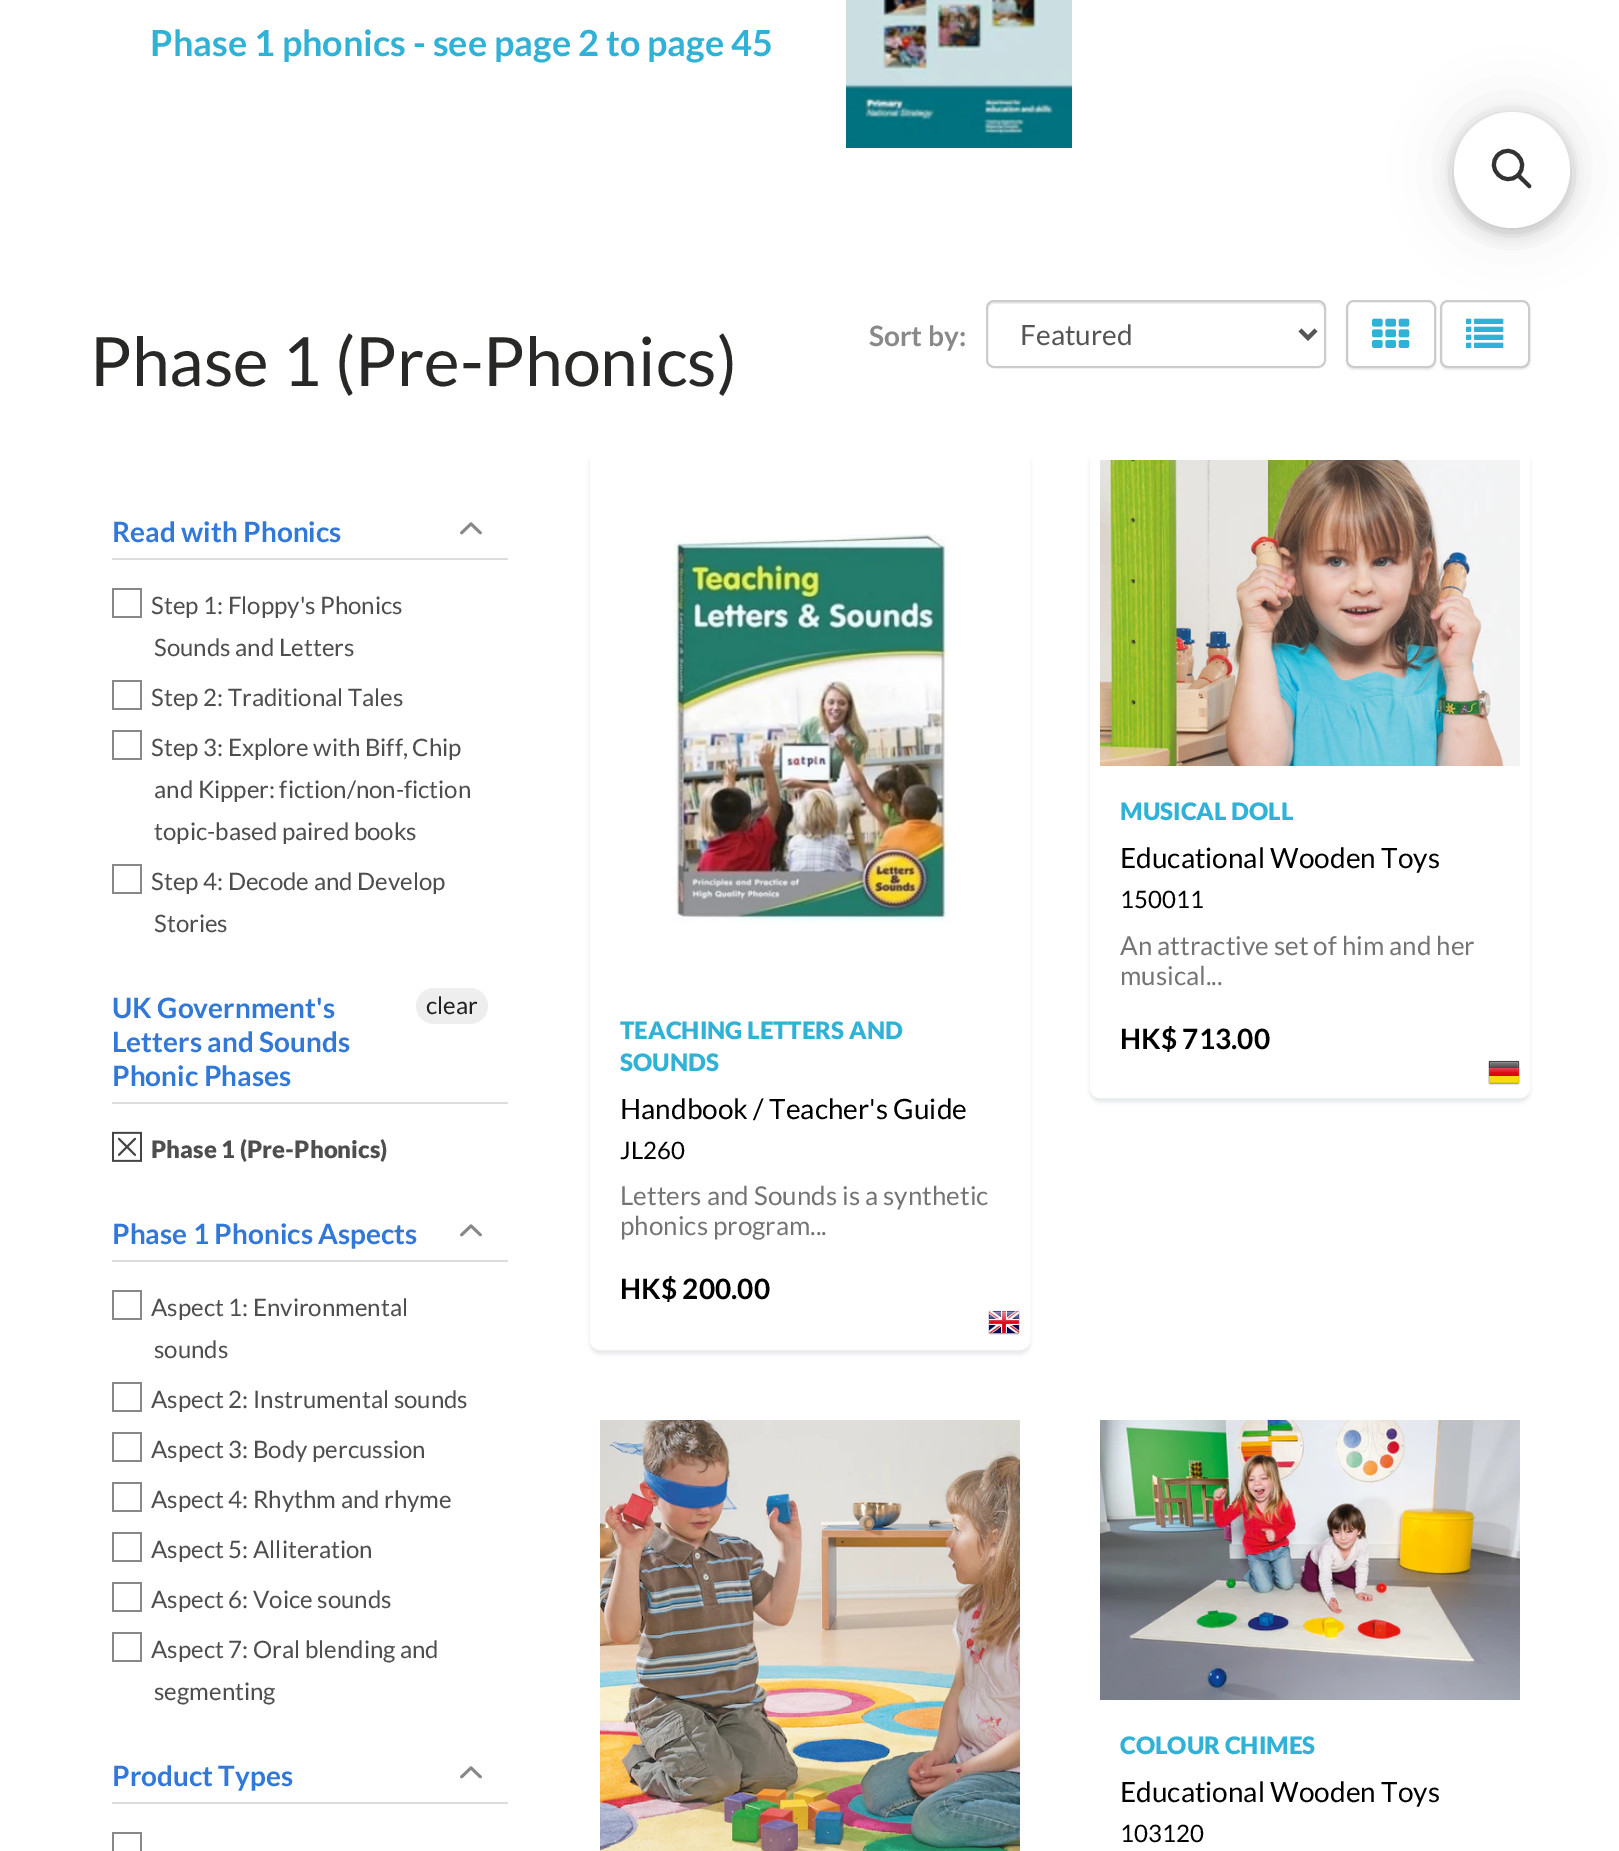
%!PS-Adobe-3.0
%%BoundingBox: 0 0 1619 1851
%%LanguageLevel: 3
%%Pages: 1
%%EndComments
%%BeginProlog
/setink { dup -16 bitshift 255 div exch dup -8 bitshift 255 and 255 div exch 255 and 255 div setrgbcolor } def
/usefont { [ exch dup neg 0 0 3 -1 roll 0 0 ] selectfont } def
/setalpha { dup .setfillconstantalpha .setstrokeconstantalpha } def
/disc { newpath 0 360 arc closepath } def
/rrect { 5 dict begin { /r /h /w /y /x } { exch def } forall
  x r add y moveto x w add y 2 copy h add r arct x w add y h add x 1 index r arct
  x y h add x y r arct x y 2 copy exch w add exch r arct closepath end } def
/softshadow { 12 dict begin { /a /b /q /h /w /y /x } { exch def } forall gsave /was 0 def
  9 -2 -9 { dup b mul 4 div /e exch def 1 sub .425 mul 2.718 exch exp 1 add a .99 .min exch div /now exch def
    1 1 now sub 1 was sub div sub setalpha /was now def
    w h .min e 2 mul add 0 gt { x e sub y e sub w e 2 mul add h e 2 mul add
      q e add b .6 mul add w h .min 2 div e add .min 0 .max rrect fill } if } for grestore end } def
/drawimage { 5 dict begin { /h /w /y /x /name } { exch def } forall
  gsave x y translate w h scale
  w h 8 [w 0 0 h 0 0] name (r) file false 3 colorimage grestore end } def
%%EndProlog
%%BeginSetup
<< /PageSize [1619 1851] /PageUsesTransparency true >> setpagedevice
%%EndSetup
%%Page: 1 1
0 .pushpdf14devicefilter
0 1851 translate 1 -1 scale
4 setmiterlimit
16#FFFFFF setink
0 0 1619 1851 rectfill
/Lato-Bold 36 usefont
16#30B1D6 setink
150 56 moveto (Phase 1 phonics - see page 2 to page 45) show
(img1.raw) 846 0 226 148 drawimage
16#DDDDDD setink
112 558 396 2 rectfill
/Lato-Bold 28 usefont
16#3278D9 setink
112 542 moveto (Read with Phonics) show
(img2.raw) 460 522 22 13 drawimage
16#888888 setink
114 590 moveto 114 616 lineto 140 616 lineto 140 590 lineto closepath 112 588 moveto 142 588 lineto 142 618 lineto 112 618 lineto closepath fill
/Lato-Regular 24 usefont
16#4E4E4E setink
151 614 moveto (Step 1: Floppy's Phonics) show
154 656 moveto (Sounds and Letters) show
16#888888 setink
114 682 moveto 114 708 lineto 140 708 lineto 140 682 lineto closepath 112 680 moveto 142 680 lineto 142 710 lineto 112 710 lineto closepath fill
16#4E4E4E setink
151 706 moveto (Step 2: Traditional Tales) show
16#888888 setink
114 732 moveto 114 758 lineto 140 758 lineto 140 732 lineto closepath 112 730 moveto 142 730 lineto 142 760 lineto 112 760 lineto closepath fill
16#4E4E4E setink
[
    [(Step 3: Explore with Biff, Chip) 151 756]
    [(and Kipper: fiction/non-fiction) 154 798]
    [(topic-based paired books) 154 840]
] { aload pop moveto show } forall
16#888888 setink
114 866 moveto 114 892 lineto 140 892 lineto 140 866 lineto closepath 112 864 moveto 142 864 lineto 142 894 lineto 112 894 lineto closepath fill
16#4E4E4E setink
151 890 moveto (Step 4: Decode and Develop) show
154 932 moveto (Stories) show
16#DDDDDD setink
112 1102 396 2 rectfill
/Lato-Bold 28 usefont
16#3278D9 setink
[
    [(UK Government's) 112 1018]
    [(Letters and Sounds) 112 1052]
    [(Phonic Phases) 112 1086]
] { aload pop moveto show } forall
16#EEEEEE setink
416 988 72 36 18 rrect fill
/Lato-Regular 24 usefont
16#222222 setink
426 1014 moveto (clear) show
(img3.raw) 112 1131 30 31 drawimage
/Lato-Black 24 usefont
16#4E4E4E setink
151 1158 moveto (Phase 1 \(Pre-Phonics\)) show
16#DDDDDD setink
112 1260 396 2 rectfill
/Lato-Bold 28 usefont
16#3278D9 setink
112 1244 moveto (Phase 1 Phonics Aspects) show
(img2.raw) 460 1224 22 13 drawimage
16#888888 setink
114 1292 moveto 114 1318 lineto 140 1318 lineto 140 1292 lineto closepath 112 1290 moveto 142 1290 lineto 142 1320 lineto 112 1320 lineto closepath fill
/Lato-Regular 24 usefont
16#4E4E4E setink
151 1316 moveto (Aspect 1: Environmental) show
154 1358 moveto (sounds) show
16#888888 setink
114 1384 moveto 114 1410 lineto 140 1410 lineto 140 1384 lineto closepath 112 1382 moveto 142 1382 lineto 142 1412 lineto 112 1412 lineto closepath fill
16#4E4E4E setink
151 1408 moveto (Aspect 2: Instrumental sounds) show
16#888888 setink
114 1434 moveto 114 1460 lineto 140 1460 lineto 140 1434 lineto closepath 112 1432 moveto 142 1432 lineto 142 1462 lineto 112 1462 lineto closepath fill
16#4E4E4E setink
151 1458 moveto (Aspect 3: Body percussion) show
16#888888 setink
114 1484 moveto 114 1510 lineto 140 1510 lineto 140 1484 lineto closepath 112 1482 moveto 142 1482 lineto 142 1512 lineto 112 1512 lineto closepath fill
16#4E4E4E setink
151 1508 moveto (Aspect 4: Rhythm and rhyme) show
16#888888 setink
114 1534 moveto 114 1560 lineto 140 1560 lineto 140 1534 lineto closepath 112 1532 moveto 142 1532 lineto 142 1562 lineto 112 1562 lineto closepath fill
16#4E4E4E setink
151 1558 moveto (Aspect 5: Alliteration) show
16#888888 setink
114 1584 moveto 114 1610 lineto 140 1610 lineto 140 1584 lineto closepath 112 1582 moveto 142 1582 lineto 142 1612 lineto 112 1612 lineto closepath fill
16#4E4E4E setink
151 1608 moveto (Aspect 6: Voice sounds) show
16#888888 setink
114 1634 moveto 114 1660 lineto 140 1660 lineto 140 1634 lineto closepath 112 1632 moveto 142 1632 lineto 142 1662 lineto 112 1662 lineto closepath fill
16#4E4E4E setink
151 1658 moveto (Aspect 7: Oral blending and) show
154 1700 moveto (segmenting) show
16#DDDDDD setink
112 1802 396 2 rectfill
/Lato-Bold 28 usefont
16#3278D9 setink
112 1786 moveto (Product Types) show
(img2.raw) 460 1766 22 13 drawimage
16#888888 setink
114 1834 moveto 114 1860 lineto 140 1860 lineto 140 1834 lineto closepath 112 1832 moveto 142 1832 lineto 142 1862 lineto 112 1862 lineto closepath fill
16#898989 setink
869 346 moveto (Sort by:) show
16#ECECEC setink
994 304 moveto 1318 304 lineto 1321 304 1324 307 1324 310 curveto 1324 308 lineto 1324 305 1321 302 1318 302 curveto 994 302 lineto 991 302 988 305 988 308 curveto 988 310 lineto 988 307 991 304 994 304 curveto closepath fill
16#CCCCCC setink
2 setlinewidth
987 301 338 66 7 rrect stroke
16#555555 setink
4 setlinewidth
1300 330 moveto 1308 338 lineto 1316 330 lineto stroke
/Lato-Regular 28 usefont
1020 345 moveto (Featured) show
16#000000 setink
1346 302 90 68 8 1 0.07 softshadow
16#FFFFFF setink
1347 301 88 66 7 rrect gsave fill grestore
16#CCCCCC setink
2 setlinewidth
stroke
(img4.raw) 1372 318 38 30 drawimage
16#000000 setink
1440 302 90 68 8 1 0.07 softshadow
16#FFFFFF setink
1441 301 88 66 7 rrect gsave fill grestore
16#CCCCCC setink
stroke
(img5.raw) 1466 318 38 30 drawimage
16#0B191C setink
1090 454 440 648 10 2 0.1 softshadow
16#FFFFFF setink
1095 455 430 638 5 rrect gsave fill grestore
10 setlinewidth
stroke
(img6.raw) 1100 460 420 306 drawimage
/Lato-Black 24 usefont
16#30B1D6 setink
1120 820 moveto (MUSICAL DOLL) show
/Lato-Regular 28 usefont
16#000000 setink
1120 868 moveto (Educational Wooden Toys) show
/Lato-Regular 24 usefont
1120 908 moveto (150011) show
/Lato-Regular 26 usefont
16#747474 setink
1120 955 moveto (An attractive set of him and her) show
1120 985 moveto (musical...) show
/Lato-Bold 28 usefont
16#000000 setink
1120 1049 moveto (HK$ 713.00) show
(img7.raw) 1488 1060 32 25 drawimage
16#0B191C setink
590 454 440 900 10 2 0.1 softshadow
16#FFFFFF setink
595 455 430 890 5 rrect gsave fill grestore
stroke
(img8.raw) 672 534 278 389 drawimage
/Lato-Black 24 usefont
16#30B1D6 setink
620 1039 moveto (TEACHING LETTERS AND) show
620 1071 moveto (SOUNDS) show
/Lato-Regular 28 usefont
16#000000 setink
620 1119 moveto (Handbook / Teacher's Guide) show
/Lato-Regular 24 usefont
620 1159 moveto (JL260) show
/Lato-Regular 26 usefont
16#747474 setink
620 1205 moveto (Letters and Sounds is a synthetic) show
620 1235 moveto (phonics program...) show
/Lato-Bold 28 usefont
16#000000 setink
620 1299 moveto (HK$ 200.00) show
(img9.raw) 988 1310 32 25 drawimage
(img10.raw) 600 1420 420 431 drawimage
(img11.raw) 1100 1420 420 280 drawimage
/Lato-Black 24 usefont
16#30B1D6 setink
1120 1754 moveto (COLOUR CHIMES) show
/Lato-Regular 28 usefont
16#000000 setink
1120 1802 moveto (Educational Wooden Toys) show
/Lato-Regular 24 usefont
1120 1842 moveto (103120) show
/Lato-Regular 68 usefont
16#282827 setink
90 386 moveto (Phase 1 \(Pre-Phonics\)) show
16#000000 setink
1454 120 116 116 58 8 0.05 softshadow
1454 116 116 116 58 8 0.15 softshadow
1454 112 116 116 58 30 0.1 softshadow
16#FFFFFF setink
1512 170 58 disc fill
16#333333 setink
4 setlinewidth
1498 155 moveto 1511 142 1531 162 1518 175 curveto 1505 188 1485 168 1498 155 curveto closepath stroke
1516.5 176.5 moveto 1519.5 173.5 lineto 1531 185 lineto 1532 187 1529.5 189.5 1528 187.5 curveto closepath fill
.poppdf14devicefilter showpage
%%EOF
